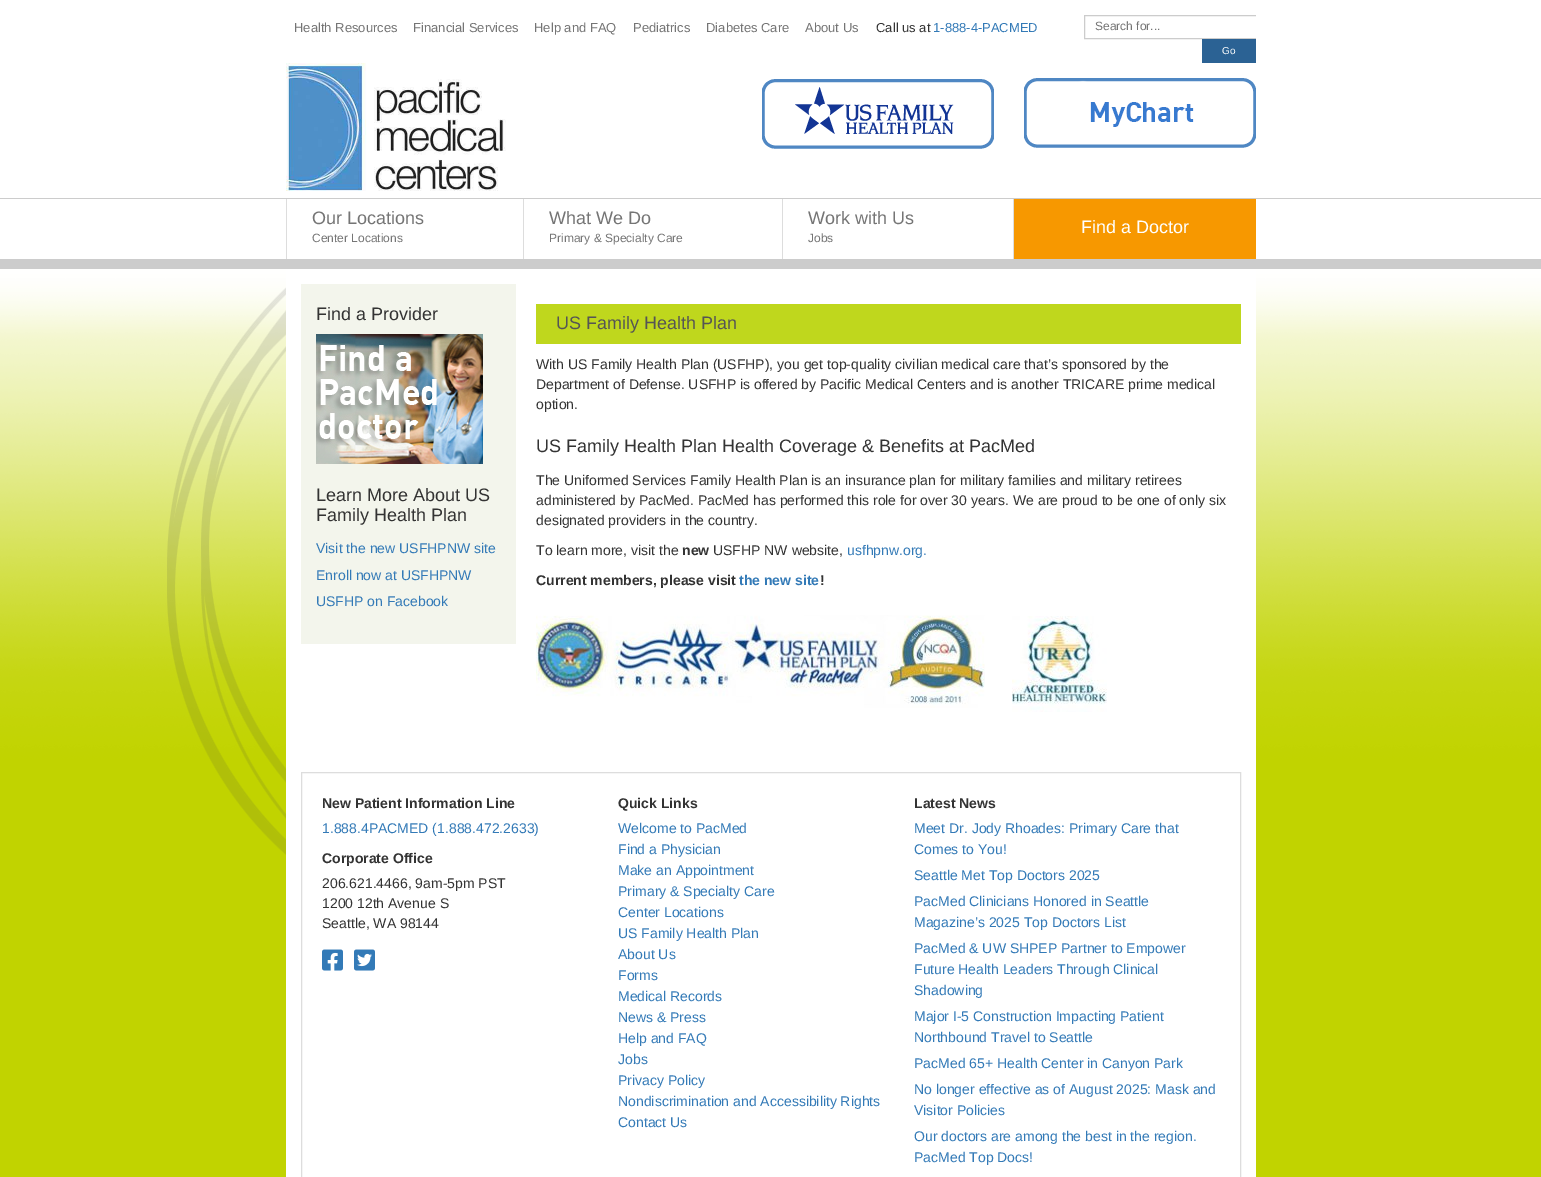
%!PS-Adobe-3.0
%%BoundingBox: 0 0 1541 1177
%%LanguageLevel: 3
%%Pages: 1
%%EndComments
%%BeginProlog
/setink { dup -16 bitshift 255 div exch dup -8 bitshift 255 and 255 div exch 255 and 255 div setrgbcolor } def
/usefont { [ exch dup neg 0 0 3 -1 roll 0 0 ] selectfont } def
/drawimage { 5 dict begin { /h /w /y /x /name } { exch def } forall
  gsave x y translate w h scale
  w h 8 [w 0 0 h 0 0] name (r) file false 3 colorimage grestore end } def
%%EndProlog
%%BeginSetup
<< /PageSize [1541 1177] >> setpagedevice
%%EndSetup
%%Page: 1 1
0 1177 translate 1 -1 scale
4 setmiterlimit
16#C1D300 setink
0 0 1541 1177 rectfill
16#FFFFFF setink
0 0 1541 259 rectfill
16#CCCCCC setink
0 259 1541 10 rectfill
/LiberationSans-Regular 13 usefont
16#757575 setink
[
    [(Health Resources) 294 32]
    [(Financial Services) 413 32]
    [(Help and FAQ) 534 32]
    [(Pediatrics) 633 32]
    [(Diabetes Care) 706 32]
    [(About Us) 805 32]
] { aload pop moveto show } forall
16#333333 setink
876 32 moveto (Call us at) show
16#337AB7 setink
933 32 moveto (1-888-4-PACMED) show
gsave
286 0 970 198 rectclip
16#CCCCCC setink
1084.5 15.5 176 23 rectstroke
grestore
/LiberationSans-Regular 12 usefont
16#757575 setink
1095 30 moveto (Search for...) show
16#2B6294 setink
1202 39 54 24 rectfill
/LiberationSans-Regular 10 usefont
16#FFFFFF setink
1222 54 moveto (Go) show
(img1.raw) 286 63 220 128 drawimage
(img2.raw) 762 79 232 70 drawimage
(img3.raw) 1024 78 232 70 drawimage
16#CCCCCC setink
0 198 1541 1 rectfill
16#DDDDDD setink
286 199 1 60 rectfill
/LiberationSans-Regular 18 usefont
16#757575 setink
312 224 moveto (Our Locations) show
/LiberationSans-Regular 12 usefont
312 242 moveto (Center Locations) show
16#DDDDDD setink
523 199 1 60 rectfill
/LiberationSans-Regular 18 usefont
16#757575 setink
549 224 moveto (What We Do) show
/LiberationSans-Regular 12 usefont
549 242 moveto (Primary & Specialty Care) show
16#DDDDDD setink
782 199 1 60 rectfill
/LiberationSans-Regular 18 usefont
16#757575 setink
808 224 moveto (Work with Us) show
/LiberationSans-Regular 12 usefont
808 242 moveto (Jobs) show
16#DDDDDD setink
1013 199 1 60 rectfill
16#F79800 setink
1014 199 242 60 rectfill
/LiberationSans-Regular 18 usefont
16#FFFFFF setink
1081 233 moveto (Find a Doctor) show
(img4.raw) 0 269 1541 586 drawimage
286 269 970 908 rectfill
16#F3F5EC setink
301 284 215 360 rectfill
16#333333 setink
316 320 moveto (Find a Provider) show
(img5.raw) 316 334 167 130 drawimage
316 501 moveto (Learn More About US) show
316 521 moveto (Family Health Plan) show
/LiberationSans-Regular 14 usefont
16#337AB7 setink
[
    [(Visit the new USFHPNW site) 316 553]
    [(Enroll now at USFHPNW) 316 580]
    [(USFHP on Facebook) 316 606]
] { aload pop moveto show } forall
16#BFD71D setink
536 304 705 40 rectfill
/LiberationSans-Regular 18 usefont
16#555555 setink
556 329 moveto (US Family Health Plan) show
/LiberationSans-Regular 14 usefont
16#333333 setink
[
    [(With US Family Health Plan \(USFHP\), you get top-quality civilian medical care that’s sponsored by the) 536 369]
    [(Department of Defense. USFHP is offered by Pacific Medical Centers and is another TRICARE prime medical) 536 389]
    [(option.) 536 409]
] { aload pop moveto show } forall
/LiberationSans-Regular 18 usefont
536 452 moveto (US Family Health Plan Health Coverage & Benefits at PacMed) show
/LiberationSans-Regular 14 usefont
[
    [(The Uniformed Services Family Health Plan is an insurance plan for military families and military retirees) 536 485]
    [(administered by PacMed. PacMed has performed this role for over 30 years. We are proud to be one of only six) 536 505]
    [(designated providers in the country.) 536 525]
    [(To learn more, visit the) 536 555]
] { aload pop moveto show } forall
/LiberationSans-Bold 14 usefont
682 555 moveto (new) show
/LiberationSans-Regular 14 usefont
713 555 moveto (USFHP NW website,) show
16#337AB7 setink
847 555 moveto (usfhpnw.org.) show
/LiberationSans-Bold 14 usefont
16#333333 setink
536 585 moveto (Current members, please visit) show
16#337AB7 setink
739 585 moveto (the new site) show
16#333333 setink
820 585 moveto (!) show
(img6.raw) 536 615 449 93 drawimage
(img7.raw) 1012 616 95 96 drawimage
16#DDDDDD setink
301.5 772.5 939 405 rectstroke
16#333333 setink
322 808 moveto (New Patient Information Line) show
/LiberationSans-Regular 14 usefont
16#337AB7 setink
322 833 moveto (1.888.4PACMED \(1.888.472.2633\)) show
/LiberationSans-Bold 14 usefont
16#333333 setink
322 863 moveto (Corporate Office) show
/LiberationSans-Regular 14 usefont
[
    [(206.621.4466, 9am-5pm PST) 322 888]
    [(1200 12th Avenue S) 322 908]
    [(Seattle, WA 98144) 322 928]
] { aload pop moveto show } forall
(img8.raw) 322 949 21 22 drawimage
(img9.raw) 354 949 21 22 drawimage
/LiberationSans-Bold 14 usefont
618 808 moveto (Quick Links) show
/LiberationSans-Regular 14 usefont
16#337AB7 setink
[
    [(Welcome to PacMed) 618 833]
    [(Find a Physician) 618 854]
    [(Make an Appointment) 618 875]
    [(Primary & Specialty Care) 618 896]
    [(Center Locations) 618 917]
    [(US Family Health Plan) 618 938]
    [(About Us) 618 959]
    [(Forms) 618 980]
    [(Medical Records) 618 1001]
    [(News & Press) 618 1022]
    [(Help and FAQ) 618 1043]
    [(Jobs) 618 1064]
    [(Privacy Policy) 618 1085]
    [(Nondiscrimination and Accessibility Rights) 618 1106]
    [(Contact Us) 618 1127]
] { aload pop moveto show } forall
/LiberationSans-Bold 14 usefont
16#333333 setink
914 808 moveto (Latest News) show
/LiberationSans-Regular 14 usefont
16#337AB7 setink
[
    [(Meet Dr. Jody Rhoades: Primary Care that) 914 833]
    [(Comes to You!) 914 854]
    [(Seattle Met Top Doctors 2025) 914 880]
    [(PacMed Clinicians Honored in Seattle) 914 906]
    [(Magazine’s 2025 Top Doctors List) 914 927]
    [(PacMed & UW SHPEP Partner to Empower) 914 953]
    [(Future Health Leaders Through Clinical) 914 974]
    [(Shadowing) 914 995]
    [(Major I-5 Construction Impacting Patient) 914 1021]
    [(Northbound Travel to Seattle) 914 1042]
    [(PacMed 65+ Health Center in Canyon Park) 914 1068]
    [(No longer effective as of August 2025: Mask and) 914 1094]
    [(Visitor Policies) 914 1115]
    [(Our doctors are among the best in the region.) 914 1141]
    [(PacMed Top Docs!) 914 1162]
] { aload pop moveto show } forall
showpage
%%EOF
